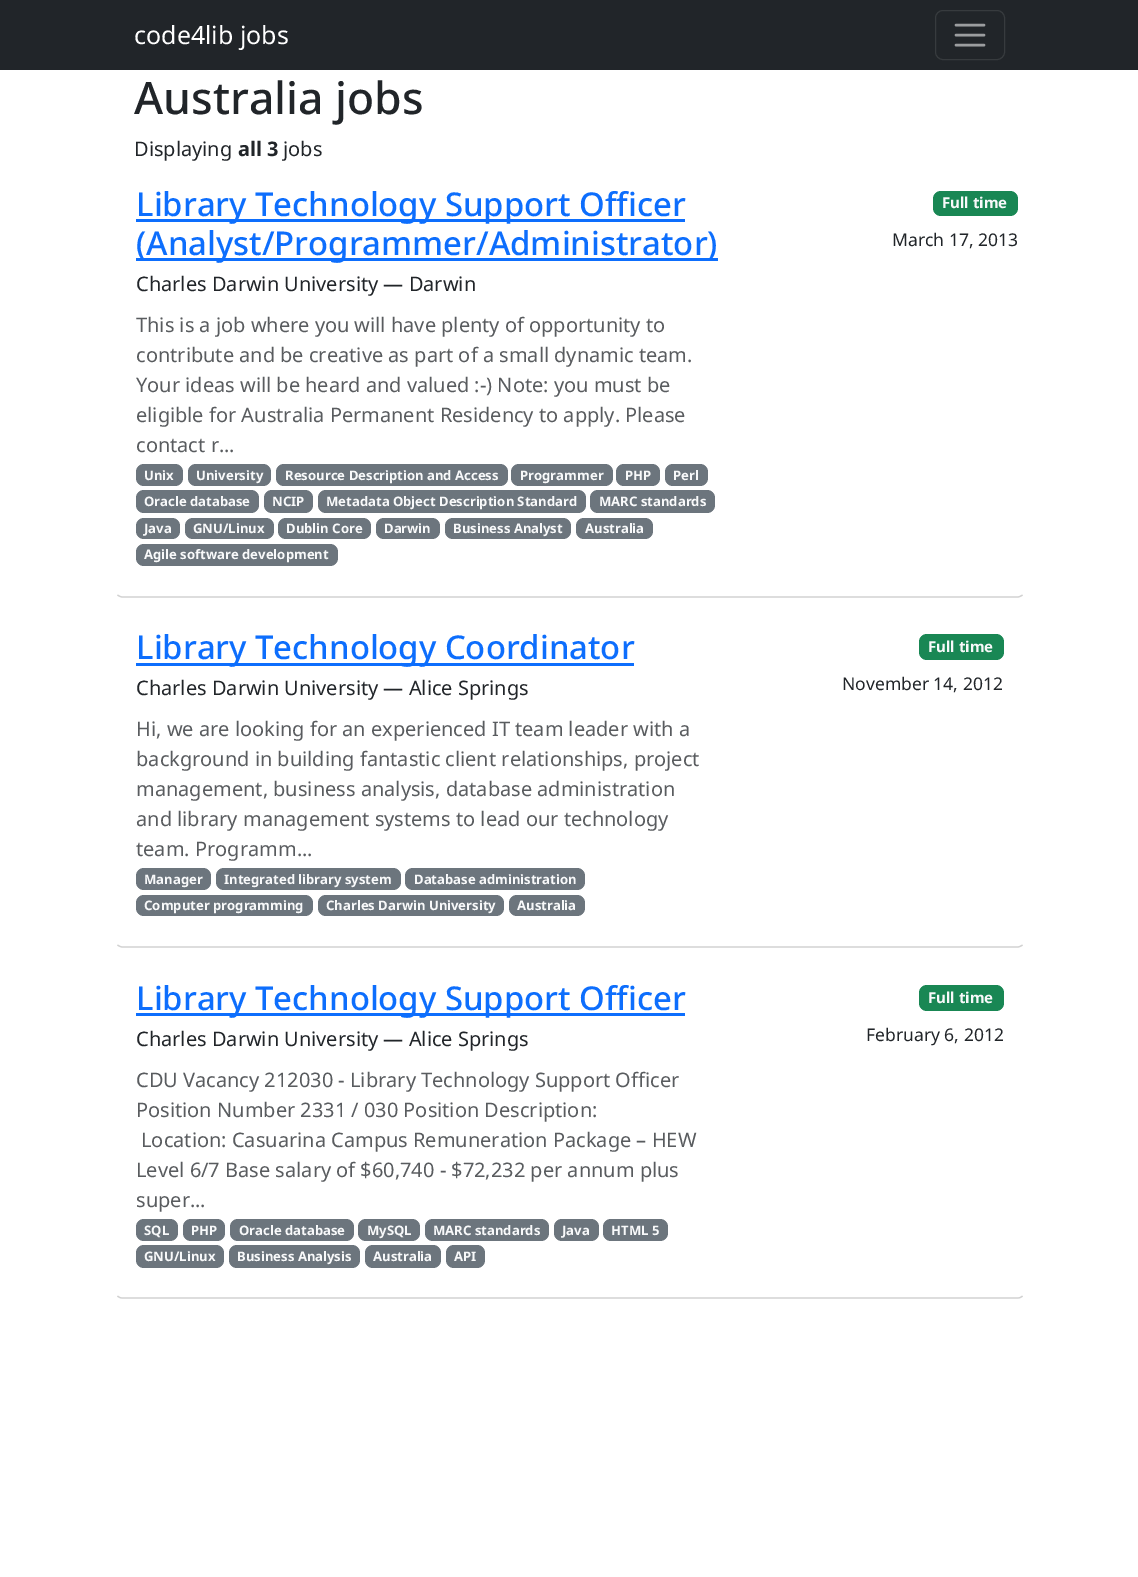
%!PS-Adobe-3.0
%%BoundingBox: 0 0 1138 1577
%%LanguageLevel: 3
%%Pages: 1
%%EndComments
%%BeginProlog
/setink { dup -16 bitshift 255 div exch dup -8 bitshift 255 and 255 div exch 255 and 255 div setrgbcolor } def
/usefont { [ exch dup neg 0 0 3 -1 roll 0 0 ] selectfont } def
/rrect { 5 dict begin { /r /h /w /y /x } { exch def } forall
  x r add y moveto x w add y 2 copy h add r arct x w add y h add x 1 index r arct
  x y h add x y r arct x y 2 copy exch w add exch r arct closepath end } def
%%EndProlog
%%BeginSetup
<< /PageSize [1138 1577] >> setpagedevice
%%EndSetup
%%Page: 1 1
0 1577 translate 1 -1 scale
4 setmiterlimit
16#FFFFFF setink
0 0 1138 1577 rectfill
16#212529 setink
0 0 1138 70 rectfill
/NotoSans-Regular 25 usefont
16#FFFFFF setink
134 44 moveto (code4lib jobs) show
16#373B3E setink
935.5 10.5 69 49 7.5 rrect stroke
16#9B9D9F setink
2.5 setlinewidth
1 setlinecap
956 25 moveto 984 25 lineto 956 35 moveto 984 35 lineto 956 45 moveto 984 45 lineto stroke
/NotoSans-Medium 44.5 usefont
16#212529 setink
134 114 moveto (Australia jobs) show
/NotoSans-Regular 20 usefont
134 156 moveto (Displaying) show
/NotoSans-Bold 20 usefont
238 156 moveto (all 3) show
/NotoSans-Regular 20 usefont
283 156 moveto (jobs) show
16#D2D2D2 setink
1.2 setlinewidth
0 setlinecap
1022.5 595 moveto 1021 596 1019.5 597 1017.5 597 curveto 122.5 597 lineto 120.5 597 119 596 117.5 595 curveto stroke
16#0D6EFD setink
136 219 549 3 rectfill
/NotoSans-Medium 32.8 usefont
136 216 moveto (Library Technology Support Officer) show
136 258 582 3 rectfill
136 255 moveto (\(Analyst/Programmer/Administrator\)) show
/NotoSans-Regular 20 usefont
16#212529 setink
136 291 moveto (Charles Darwin University — Darwin) show
16#198754 setink
933 191 85 25 8 rrect fill
/NotoSans-Bold 15 usefont
16#F8F9FA setink
942 208 moveto (Full time) show
/NotoSans-Regular 17.5 usefont
16#212529 setink
892 246 moveto (March 17, 2013) show
/NotoSans-Regular 20 usefont
16#595C5F setink
[
    [(This is a job where you will have plenty of opportunity to) 136 332]
    [(contribute and be creative as part of a small dynamic team.) 136 362]
    [(Your ideas will be heard and valued :-\) Note: you must be) 136 392]
    [(eligible for Australia Permanent Residency to apply. Please) 136 422]
    [(contact r...) 136 452]
] { aload pop moveto show } forall
16#6C757D setink
136 464 47 22 8 rrect fill
/NotoSans-Bold 13.1 usefont
16#F8F9FA setink
144 480 moveto (Unix) show
16#6C757D setink
188 464 83 22 8 rrect fill
16#F8F9FA setink
196 480 moveto (University) show
16#6C757D setink
276 464 232 22 8 rrect fill
16#F8F9FA setink
285 480 moveto (Resource Description and Access) show
16#6C757D setink
511 464 102 22 8 rrect fill
16#F8F9FA setink
520 480 moveto (Programmer) show
16#6C757D setink
616 464 44 22 8 rrect fill
16#F8F9FA setink
625 480 moveto (PHP) show
16#6C757D setink
665 464 43 22 8 rrect fill
16#F8F9FA setink
673 480 moveto (Perl) show
16#6C757D setink
136 490 123 23 8 rrect fill
16#F8F9FA setink
144 506 moveto (Oracle database) show
16#6C757D setink
264 490 49 23 8 rrect fill
16#F8F9FA setink
272 506 moveto (NCIP) show
16#6C757D setink
318 490 268 23 8 rrect fill
16#F8F9FA setink
326 506 moveto (Metadata Object Description Standard) show
16#6C757D setink
590 490 125 23 8 rrect fill
16#F8F9FA setink
599 506 moveto (MARC standards) show
16#6C757D setink
136 518 44 21 8 rrect fill
16#F8F9FA setink
144 533 moveto (Java) show
16#6C757D setink
185 518 89 21 8 rrect fill
16#F8F9FA setink
193 533 moveto (GNU/Linux) show
16#6C757D setink
278 518 93 21 8 rrect fill
16#F8F9FA setink
286 533 moveto (Dublin Core) show
16#6C757D setink
376 518 64 21 8 rrect fill
16#F8F9FA setink
384 533 moveto (Darwin) show
16#6C757D setink
445 518 126 21 8 rrect fill
16#F8F9FA setink
453 533 moveto (Business Analyst) show
16#6C757D setink
576 518 77 21 8 rrect fill
16#F8F9FA setink
585 533 moveto (Australia) show
16#6C757D setink
136 544 202 22 8 rrect fill
16#F8F9FA setink
144 559 moveto (Agile software development) show
16#D2D2D2 setink
1022.5 945 moveto 1021 946 1019.5 947 1017.5 947 curveto 122.5 947 lineto 120.5 947 119 946 117.5 945 curveto stroke
16#0D6EFD setink
136 663 498 3 rectfill
/NotoSans-Medium 32.8 usefont
136 659 moveto (Library Technology Coordinator) show
/NotoSans-Regular 20 usefont
16#212529 setink
136 695 moveto (Charles Darwin University — Alice Springs) show
16#198754 setink
919 634 85 26 8 rrect fill
/NotoSans-Bold 15 usefont
16#F8F9FA setink
928 652 moveto (Full time) show
/NotoSans-Regular 17.5 usefont
16#212529 setink
842 690 moveto (November 14, 2012) show
/NotoSans-Regular 20 usefont
16#595C5F setink
[
    [(Hi, we are looking for an experienced IT team leader with a) 136 736]
    [(background in building fantastic client relationships, project) 136 766]
    [(management, business analysis, database administration) 136 796]
    [(and library management systems to lead our technology) 136 826]
    [(team. Programm...) 136 856]
] { aload pop moveto show } forall
16#6C757D setink
136 868 75 22 8 rrect fill
/NotoSans-Bold 13.1 usefont
16#F8F9FA setink
144 884 moveto (Manager) show
16#6C757D setink
216 868 185 22 8 rrect fill
16#F8F9FA setink
224 884 moveto (Integrated library system) show
16#6C757D setink
405 868 180 22 8 rrect fill
16#F8F9FA setink
414 884 moveto (Database administration) show
16#6C757D setink
136 895 177 21 8 rrect fill
16#F8F9FA setink
144 910 moveto (Computer programming) show
16#6C757D setink
318 895 186 21 8 rrect fill
16#F8F9FA setink
326 910 moveto (Charles Darwin University) show
16#6C757D setink
509 895 76 21 8 rrect fill
16#F8F9FA setink
517 910 moveto (Australia) show
16#D2D2D2 setink
1022.5 1296 moveto 1021 1297.5 1019.5 1298 1017.5 1298 curveto 122.5 1298 lineto 120.5 1298 119 1297.5 117.5 1296 curveto stroke
16#0D6EFD setink
136 1013 549 3 rectfill
/NotoSans-Medium 32.8 usefont
136 1010 moveto (Library Technology Support Officer) show
/NotoSans-Regular 20 usefont
16#212529 setink
136 1046 moveto (Charles Darwin University — Alice Springs) show
16#198754 setink
919 985 85 26 8 rrect fill
/NotoSans-Bold 15 usefont
16#F8F9FA setink
928 1003 moveto (Full time) show
/NotoSans-Regular 17.5 usefont
16#212529 setink
866 1041 moveto (February 6, 2012) show
/NotoSans-Regular 20 usefont
16#595C5F setink
[
    [(CDU Vacancy 212030 - Library Technology Support Officer) 136 1087]
    [(Position Number 2331 / 030 Position Description:) 136 1117]
    [(Location: Casuarina Campus Remuneration Package – HEW) 141 1147]
    [(Level 6/7 Base salary of $60,740 - $72,232 per annum plus) 136 1177]
    [(super...) 136 1207]
] { aload pop moveto show } forall
16#6C757D setink
136 1219 42 22 8 rrect fill
/NotoSans-Bold 13.1 usefont
16#F8F9FA setink
144 1235 moveto (SQL) show
16#6C757D setink
183 1219 42 22 8 rrect fill
16#F8F9FA setink
191 1235 moveto (PHP) show
16#6C757D setink
230 1219 124 22 8 rrect fill
16#F8F9FA setink
239 1235 moveto (Oracle database) show
16#6C757D setink
358 1219 62 22 8 rrect fill
16#F8F9FA setink
367 1235 moveto (MySQL) show
16#6C757D setink
425 1219 124 22 8 rrect fill
16#F8F9FA setink
433 1235 moveto (MARC standards) show
16#6C757D setink
554 1219 45 22 8 rrect fill
16#F8F9FA setink
562 1235 moveto (Java) show
16#6C757D setink
603 1219 65 22 8 rrect fill
16#F8F9FA setink
611 1235 moveto (HTML 5) show
16#6C757D setink
136 1245 88 23 8 rrect fill
16#F8F9FA setink
144 1261 moveto (GNU/Linux) show
16#6C757D setink
229 1245 131 23 8 rrect fill
16#F8F9FA setink
237 1261 moveto (Business Analysis) show
16#6C757D setink
365 1245 76 23 8 rrect fill
16#F8F9FA setink
373 1261 moveto (Australia) show
16#6C757D setink
446 1245 39 23 8 rrect fill
16#F8F9FA setink
454 1261 moveto (API) show
showpage
%%EOF
